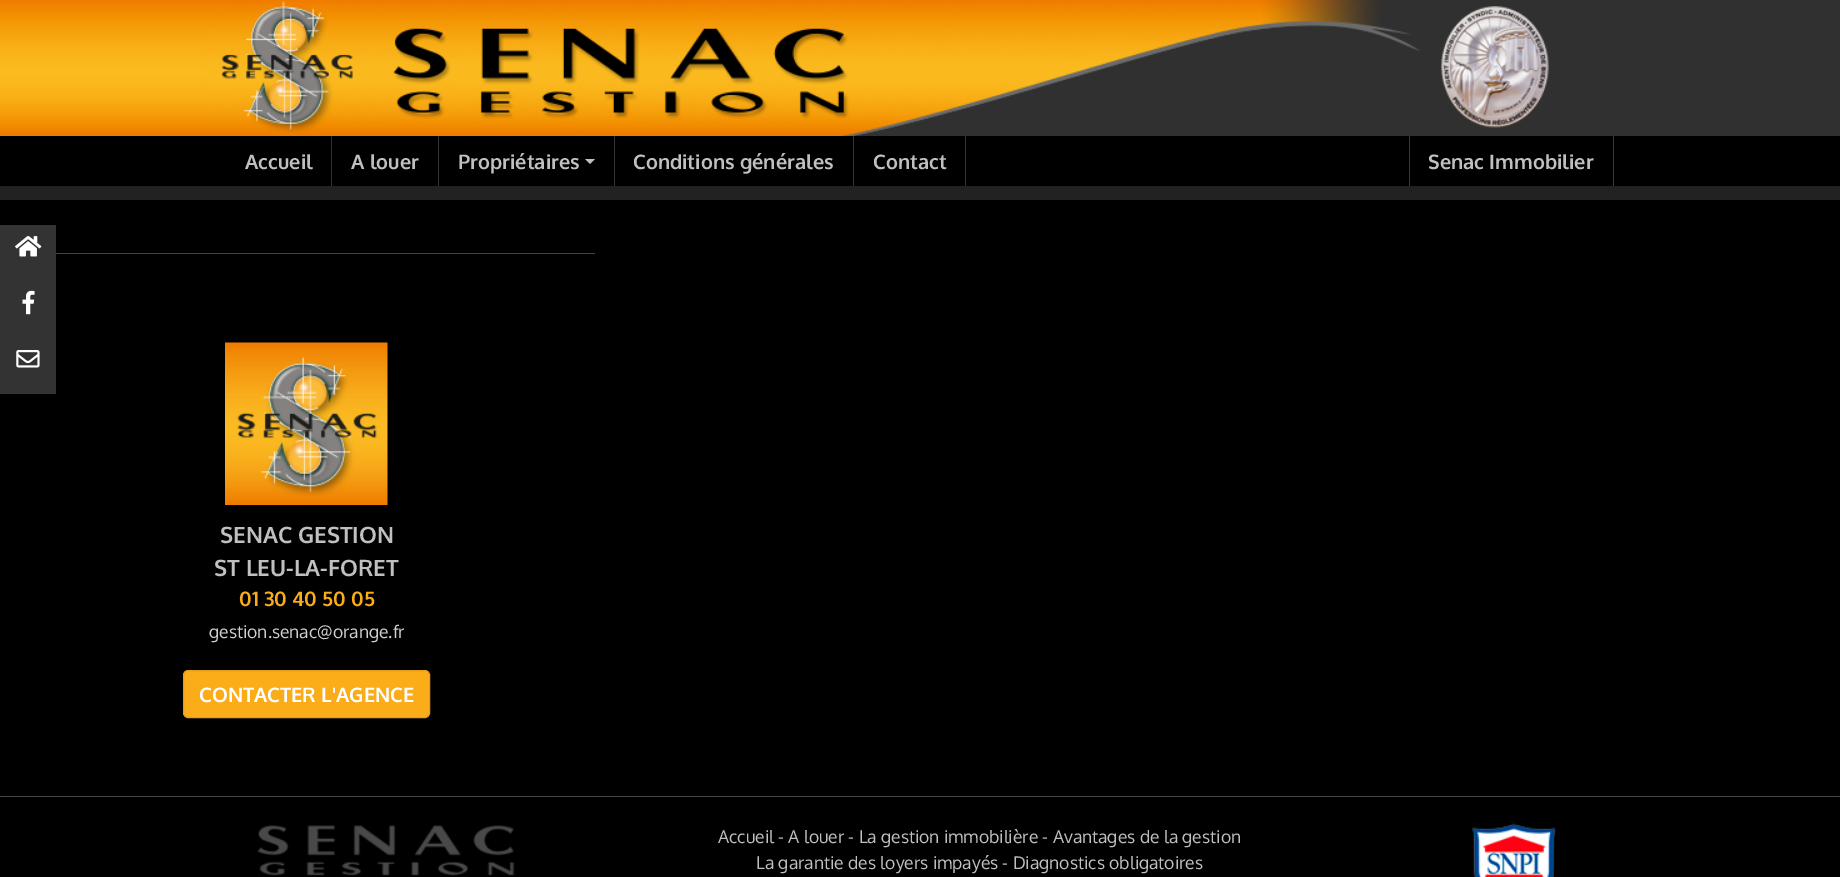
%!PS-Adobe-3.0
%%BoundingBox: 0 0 1840 877
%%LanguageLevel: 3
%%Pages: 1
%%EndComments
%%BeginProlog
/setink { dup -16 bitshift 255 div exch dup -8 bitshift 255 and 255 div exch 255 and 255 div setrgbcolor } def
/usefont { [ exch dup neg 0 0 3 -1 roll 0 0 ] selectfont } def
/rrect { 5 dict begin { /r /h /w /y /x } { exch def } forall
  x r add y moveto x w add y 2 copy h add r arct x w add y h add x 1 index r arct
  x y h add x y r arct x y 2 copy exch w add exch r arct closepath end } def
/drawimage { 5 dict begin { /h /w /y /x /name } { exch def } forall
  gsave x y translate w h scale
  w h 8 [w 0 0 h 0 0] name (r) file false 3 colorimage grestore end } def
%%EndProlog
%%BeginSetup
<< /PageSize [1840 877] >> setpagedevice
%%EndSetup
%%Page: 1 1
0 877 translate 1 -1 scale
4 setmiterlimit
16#000000 setink
0 0 1840 877 rectfill
(img1.raw) 0 0 1840 136 drawimage
(img2.raw) 207 0 1426 136 drawimage
(img3.raw) 221 1 628 132 drawimage
(img4.raw) 1441 6 108 122 drawimage
16#333333 setink
331 136 1 50 rectfill
/Oxygen-Bold 20 usefont
16#C0C0C0 setink
245 169 moveto (Accueil) show
16#333333 setink
438 136 1 50 rectfill
16#C0C0C0 setink
351 169 moveto (A louer) show
16#333333 setink
614 136 1 50 rectfill
16#C0C0C0 setink
458 169 moveto (Propriétaires) show
585 159 moveto 595 159 lineto 590 164 lineto closepath fill
16#333333 setink
853 136 1 50 rectfill
16#C0C0C0 setink
633 169 moveto (Conditions générales) show
16#333333 setink
965 136 1 50 rectfill
16#C0C0C0 setink
873 169 moveto (Contact) show
16#343A40 setink
1613 136 1 50 rectfill
1409 136 1 50 rectfill
16#C0C0C0 setink
1428 169 moveto (Senac Immobilier) show
16#222222 setink
0 186 1840 14 rectfill
16#333333 setink
0 225 56 169 rectfill
(img5.raw) 15 236 27 21 drawimage
(img6.raw) 22 290 13 25 drawimage
(img7.raw) 16 350 24 18 drawimage
16#444444 setink
56 253 539 1 rectfill
(img8.raw) 225 342 163 163 drawimage
/Oxygen-Bold 22.5 usefont
16#C0C0C0 setink
220 543 moveto (SENAC GESTION) show
214 576 moveto (ST LEU-LA-FORET) show
/Oxygen-Bold 20 usefont
16#FAAC19 setink
239 606 moveto (01 30 40 50 05) show
/Oxygen-Regular 17.5 usefont
16#D0D0D0 setink
209 638 moveto (gestion.senac@orange.fr) show
16#FAAC19 setink
183.5 670.5 246 47 4.5 rrect gsave fill grestore
16#E69E17 setink
stroke
/Oxygen-Bold 20 usefont
16#FFFFFF setink
199 702 moveto (CONTACTER L'AGENCE) show
16#444444 setink
0 796 1840 1 rectfill
(img9.raw) 257 825 258 51 drawimage
/Oxygen-Regular 17.5 usefont
16#C0C0C0 setink
718 843 moveto (Accueil - A louer - La gestion immobilière - Avantages de la gestion) show
756 869 moveto (La garantie des loyers impayés - Diagnostics obligatoires) show
(img10.raw) 1472 823 84 54 drawimage
showpage
%%EOF
